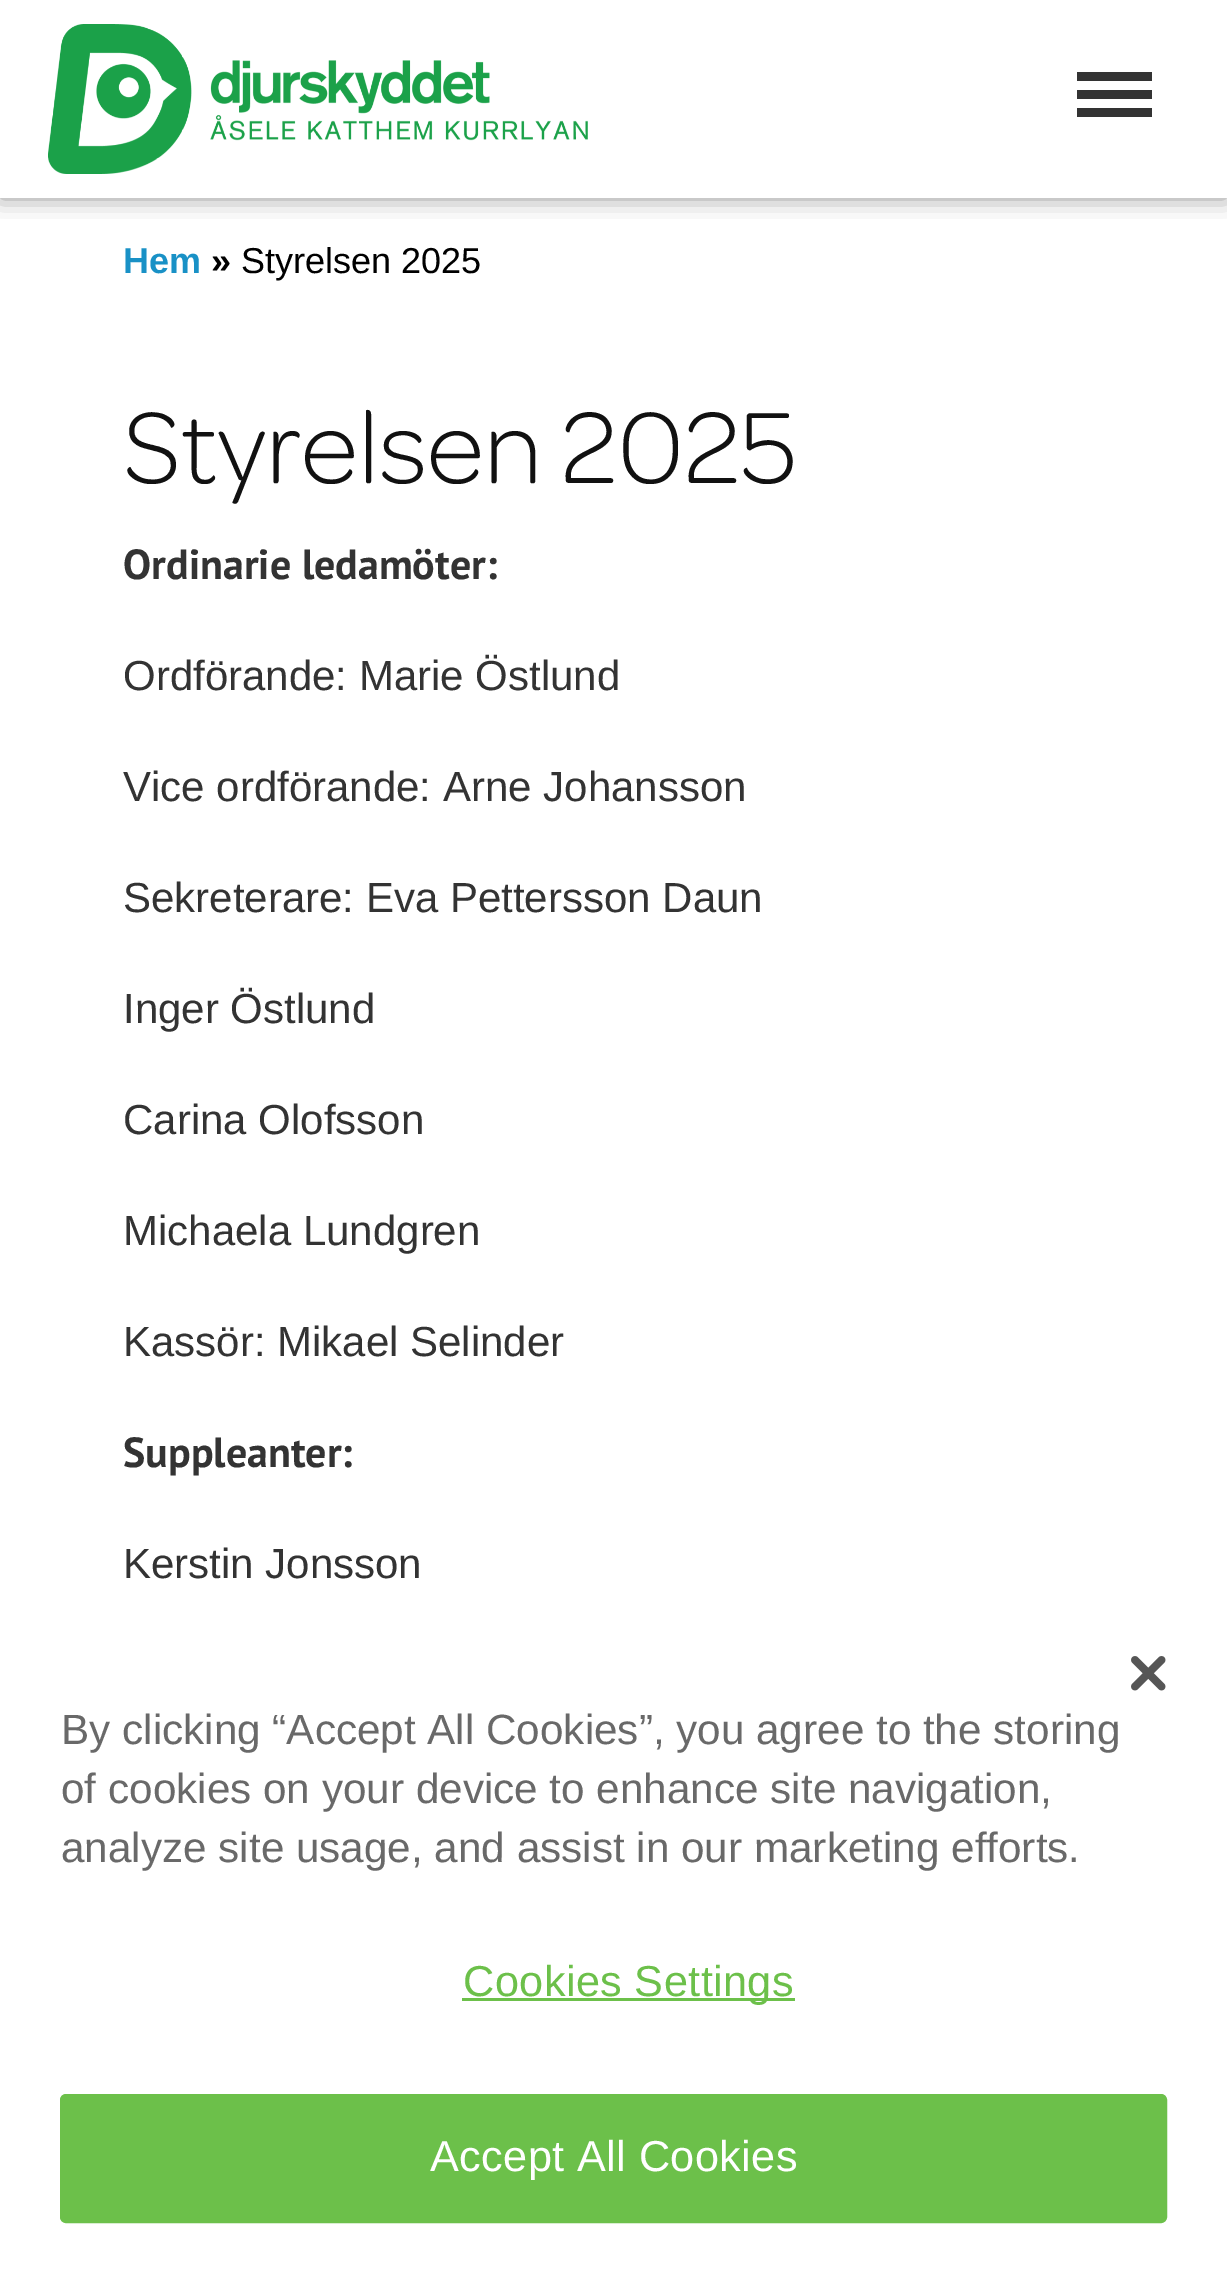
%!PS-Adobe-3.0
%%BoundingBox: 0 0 1227 2269
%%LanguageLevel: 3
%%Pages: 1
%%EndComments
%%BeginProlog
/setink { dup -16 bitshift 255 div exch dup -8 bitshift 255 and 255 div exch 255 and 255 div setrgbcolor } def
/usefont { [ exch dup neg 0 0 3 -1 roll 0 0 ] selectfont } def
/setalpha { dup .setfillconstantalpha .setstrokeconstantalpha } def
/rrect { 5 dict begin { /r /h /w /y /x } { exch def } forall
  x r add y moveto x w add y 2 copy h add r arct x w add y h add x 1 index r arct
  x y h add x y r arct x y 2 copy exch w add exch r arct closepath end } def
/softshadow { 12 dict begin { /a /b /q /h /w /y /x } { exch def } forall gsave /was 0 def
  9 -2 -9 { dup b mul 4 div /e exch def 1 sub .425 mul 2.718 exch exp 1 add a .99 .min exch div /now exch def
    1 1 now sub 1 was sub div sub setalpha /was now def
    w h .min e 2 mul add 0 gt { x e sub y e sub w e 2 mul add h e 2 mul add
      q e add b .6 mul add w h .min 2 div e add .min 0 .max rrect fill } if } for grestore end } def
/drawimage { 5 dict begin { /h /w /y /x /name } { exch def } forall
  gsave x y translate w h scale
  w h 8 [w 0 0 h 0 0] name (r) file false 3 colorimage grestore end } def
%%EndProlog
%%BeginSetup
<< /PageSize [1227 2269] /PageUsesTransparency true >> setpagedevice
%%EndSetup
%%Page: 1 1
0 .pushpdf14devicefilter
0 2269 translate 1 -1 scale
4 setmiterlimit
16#FFFFFF setink
0 0 1227 2269 rectfill
gsave
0 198 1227 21 rectclip
16#232323 setink
0 0 1227 198 0 12 0.5 softshadow
grestore
[
    [1077 72 75 9 16#333333]
    [1077 90 75 9 16#333333]
    [1077 108 75 9 16#333333]
] { aload pop setink rectfill } forall
(img1.raw) 48 24 540 150 drawimage
/LiberationSans-Bold 36 usefont
16#1991C6 setink
123 273 moveto (Hem) show
16#000000 setink
211 273 moveto (») show
/LiberationSans-Regular 36 usefont
241 273 moveto (Styrelsen 2025) show
/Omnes-Light 108 usefont
16#111111 setink
123 483 moveto (Styrelsen 2025) show
/PTSans-Bold 42 usefont
16#333333 setink
123 579 moveto (Ordinarie ledamöter:) show
/LiberationSans-Regular 42 usefont
[
    [(Ordförande: Marie Östlund) 123 690]
    [(Vice ordförande: Arne Johansson) 123 801]
    [(Sekreterare: Eva Pettersson Daun) 123 912]
    [(Inger Östlund) 123 1023]
    [(Carina Olofsson) 123 1134]
    [(Michaela Lundgren) 123 1245]
    [(Kassör: Mikael Selinder) 123 1356]
] { aload pop moveto show } forall
/PTSans-Bold 42 usefont
123 1467 moveto (Suppleanter:) show
/LiberationSans-Regular 42 usefont
123 1578 moveto (Kerstin Jonsson) show
(img2.raw) 1131 1656 35 35 drawimage
/LiberationSans-Regular 42.25 usefont
16#696969 setink
[
    [(By clicking “Accept All Cookies”, you agree to the storing) 61 1744]
    [(of cookies on your device to enhance site navigation,) 61 1803]
    [(analyze site usage, and assist in our marketing efforts.) 61 1862]
] { aload pop moveto show } forall
16#6CC04A setink
462 1998 333 3 rectfill
/LiberationSans-Regular 43.25 usefont
463 1996 moveto 0.4 0 (Cookies Settings) ashow
61.5 2095.5 1104 126 4.5 rrect gsave fill grestore
3 setlinewidth
stroke
16#FFFFFF setink
430 2171 moveto 0.4 0 (Accept All Cookies) ashow
.poppdf14devicefilter showpage
%%EOF
